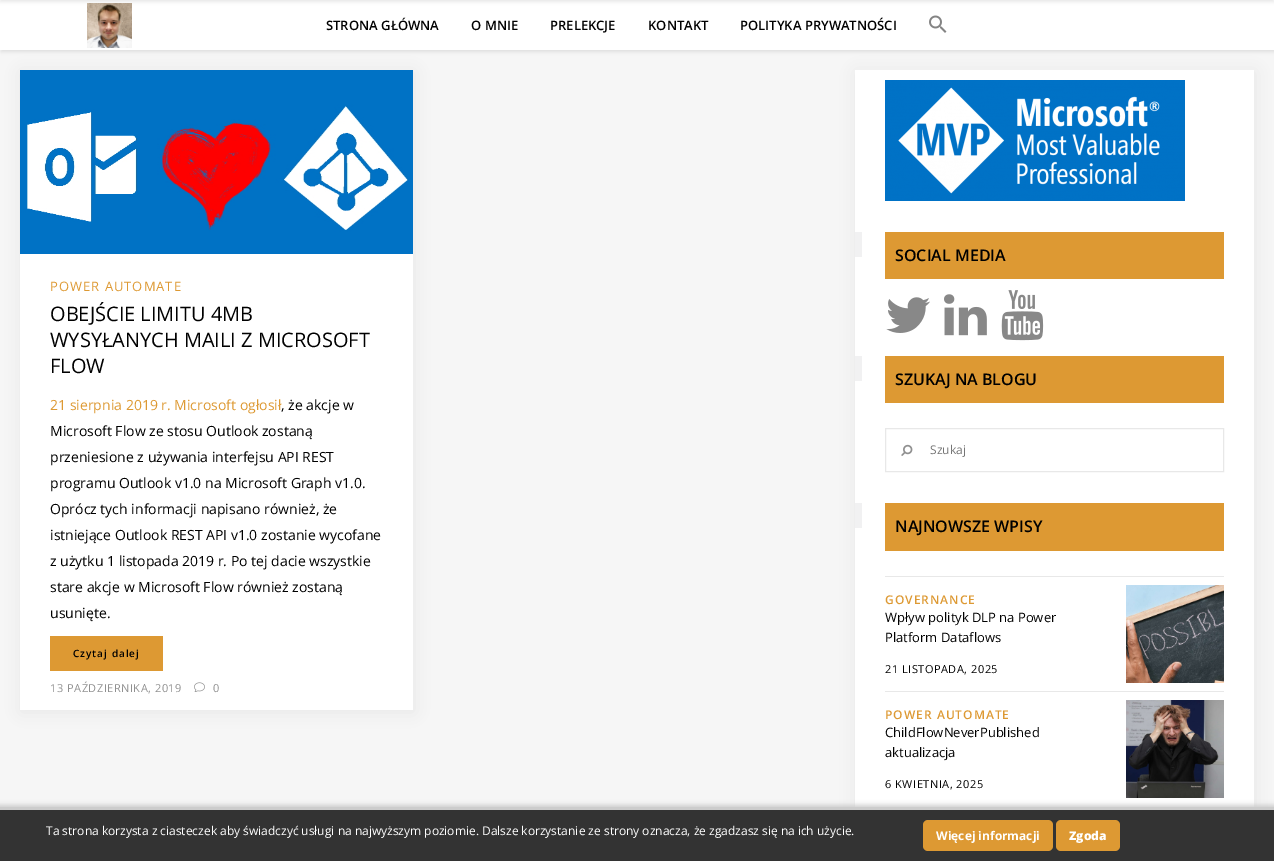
%!PS-Adobe-3.0
%%BoundingBox: 0 0 1274 861
%%LanguageLevel: 3
%%Pages: 1
%%EndComments
%%BeginProlog
/setink { dup -16 bitshift 255 div exch dup -8 bitshift 255 and 255 div exch 255 and 255 div setrgbcolor } def
/usefont { [ exch dup neg 0 0 3 -1 roll 0 0 ] selectfont } def
/setalpha { dup .setfillconstantalpha .setstrokeconstantalpha } def
/rrect { 5 dict begin { /r /h /w /y /x } { exch def } forall
  x r add y moveto x w add y 2 copy h add r arct x w add y h add x 1 index r arct
  x y h add x y r arct x y 2 copy exch w add exch r arct closepath end } def
/softshadow { 12 dict begin { /a /b /q /h /w /y /x } { exch def } forall gsave /was 0 def
  9 -2 -9 { dup b mul 4 div /e exch def 1 sub .425 mul 2.718 exch exp 1 add a .99 .min exch div /now exch def
    1 1 now sub 1 was sub div sub setalpha /was now def
    w h .min e 2 mul add 0 gt { x e sub y e sub w e 2 mul add h e 2 mul add
      q e add b .6 mul add w h .min 2 div e add .min 0 .max rrect fill } if } for grestore end } def
/drawimage { 5 dict begin { /h /w /y /x /name } { exch def } forall
  gsave x y translate w h scale
  w h 8 [w 0 0 h 0 0] name (r) file false 3 colorimage grestore end } def
%%EndProlog
%%BeginSetup
<< /PageSize [1274 861] /PageUsesTransparency true >> setpagedevice
%%EndSetup
%%Page: 1 1
0 .pushpdf14devicefilter
0 861 translate 1 -1 scale
4 setmiterlimit
16#F6F6F6 setink
0 0 1274 861 rectfill
16#000000 setink
1 2 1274 50 0 1.5 0.08 softshadow
16#E5E5E5 setink
21 72 393 640 0 7.5 1 softshadow
856 72 399 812 0 7.5 1 softshadow
16#FFFFFF setink
0 0 1274 50 rectfill
(img1.raw) 87 3 45 45 drawimage
16#000000 setink
0 -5 1274 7 0 1.5 0.08 softshadow
/OpenSans-SemiBold 13 usefont
[
    [(STRONA GŁÓWNA) 326 30]
    [(O MNIE) 471 30]
    [(PRELEKCJE) 550 30]
    [(KONTAKT) 648 30]
    [(POLITYKA PRYWATNOŚCI) 740 30]
] { aload pop moveto show } forall
(img2.raw) 929 15 18 18 drawimage
16#FFFFFF setink
20 254 393 456 rectfill
(img3.raw) 20 70 393 184 drawimage
/OpenSans-Regular 13 usefont
16#DD9933 setink
50 291 moveto 1 0 (POWER AUTOMATE) ashow
/OpenSans-Regular 20 usefont
16#000000 setink
[
    [(OBEJŚCIE LIMITU 4MB) 50 321]
    [(WYSYŁANYCH MAILI Z MICROSOFT) 50 347]
    [(FLOW) 50 373]
] { aload pop moveto show } forall
/OpenSans-Regular 14 usefont
16#DD9933 setink
50 410 moveto (21 sierpnia 2019 r. Microsoft ogłosił) show
16#000000 setink
[
    [(, że akcje w) 281 410]
    [(Microsoft Flow ze stosu Outlook zostaną) 50 436]
    [(przeniesione z używania interfejsu API REST) 50 462]
    [(programu Outlook v1.0 na Microsoft Graph v1.0.) 50 488]
    [(Oprócz tych informacji napisano również, że) 50 514]
    [(istniejące Outlook REST API v1.0 zostanie wycofane) 50 540]
    [(z użytku 1 listopada 2019 r. Po tej dacie wszystkie) 50 566]
    [(stare akcje w Microsoft Flow również zostaną) 50 592]
    [(usunięte.) 50 618]
] { aload pop moveto show } forall
16#DD9933 setink
50 636 113 35 rectfill
/OpenSans-SemiBold 10 usefont
16#000000 setink
73 657 moveto 1 0 (Czytaj dalej) ashow
/OpenSans-Regular 11 usefont
16#909090 setink
50 692 moveto 0.5 0 (13 PAŹDZIERNIKA, 2019) ashow
(img4.raw) 194 682 11 10 drawimage
213 692 moveto (0) show
16#FFFFFF setink
855 70 399 737 rectfill
(img5.raw) 885 80 300 121 drawimage
16#DD9933 setink
885 232 339 47 rectfill
16#F1F1F2 setink
855 232 7 25 rectfill
/OpenSans-SemiBold 16 usefont
16#000000 setink
895 261 moveto (SOCIAL MEDIA) show
(img6.raw) 886 297 44 36 drawimage
(img7.raw) 944 294 43 42 drawimage
(img8.raw) 1001 290 43 51 drawimage
16#DD9933 setink
885 356 339 47 rectfill
16#F1F1F2 setink
855 356 7 25 rectfill
16#000000 setink
895 385 moveto (SZUKAJ NA BLOGU) show
16#E8E8E8 setink
885.5 428.5 338 43 rectstroke
(img9.raw) 901 444 12 12 drawimage
/OpenSans-Regular 12 usefont
16#757575 setink
930 454 moveto (Szukaj) show
16#DD9933 setink
885 503 339 48 rectfill
16#F1F1F2 setink
855 503 7 25 rectfill
/OpenSans-SemiBold 16 usefont
16#000000 setink
895 532 moveto (NAJNOWSZE WPISY) show
16#E8E8E8 setink
885 576 339 1 rectfill
/OpenSans-SemiBold 12 usefont
16#DD9933 setink
885 604 moveto 1 0 (GOVERNANCE) ashow
/OpenSans-Regular 13 usefont
16#000000 setink
885 622 moveto (Wpływ polityk DLP na Power) show
885 642 moveto (Platform Dataflows) show
/OpenSans-Regular 11 usefont
885 673 moveto 0.5 0 (21 LISTOPADA, 2025) ashow
(img10.raw) 1126 585 98 98 drawimage
16#E8E8E8 setink
885 691 339 1 rectfill
/OpenSans-SemiBold 12 usefont
16#DD9933 setink
885 719 moveto 1 0 (POWER AUTOMATE) ashow
/OpenSans-Regular 13 usefont
16#000000 setink
885 737 moveto (ChildFlowNeverPublished) show
885 757 moveto (aktualizacja) show
/OpenSans-Regular 11 usefont
885 788 moveto 0.5 0 (6 KWIETNIA, 2025) ashow
(img11.raw) 1126 700 98 98 drawimage
16#CCCCCC setink
-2 805 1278 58 0 2.5 1 softshadow
16#333333 setink
0 810 1274 51 rectfill
16#CCCCCC setink
0 807 1274 3 rectfill
/OpenSans-Regular 12 usefont
16#FFFFFF setink
46 835 moveto (Ta strona korzysta z ciasteczek aby świadczyć usługi na najwyższym poziomie. Dalsze korzystanie ze strony oznacza, że zgadzasz się na ich użycie.) show
16#DD9933 setink
923 820 130 31 5 rrect fill
/OpenSans-Bold 12 usefont
16#FFFFFF setink
936 840 moveto (Więcej informacji) show
16#DD9933 setink
1056 820 64 31 5 rrect fill
/OpenSans-ExtraBold 12 usefont
16#FFFFFF setink
1069 840 moveto (Zgoda) show
.poppdf14devicefilter showpage
%%EOF
